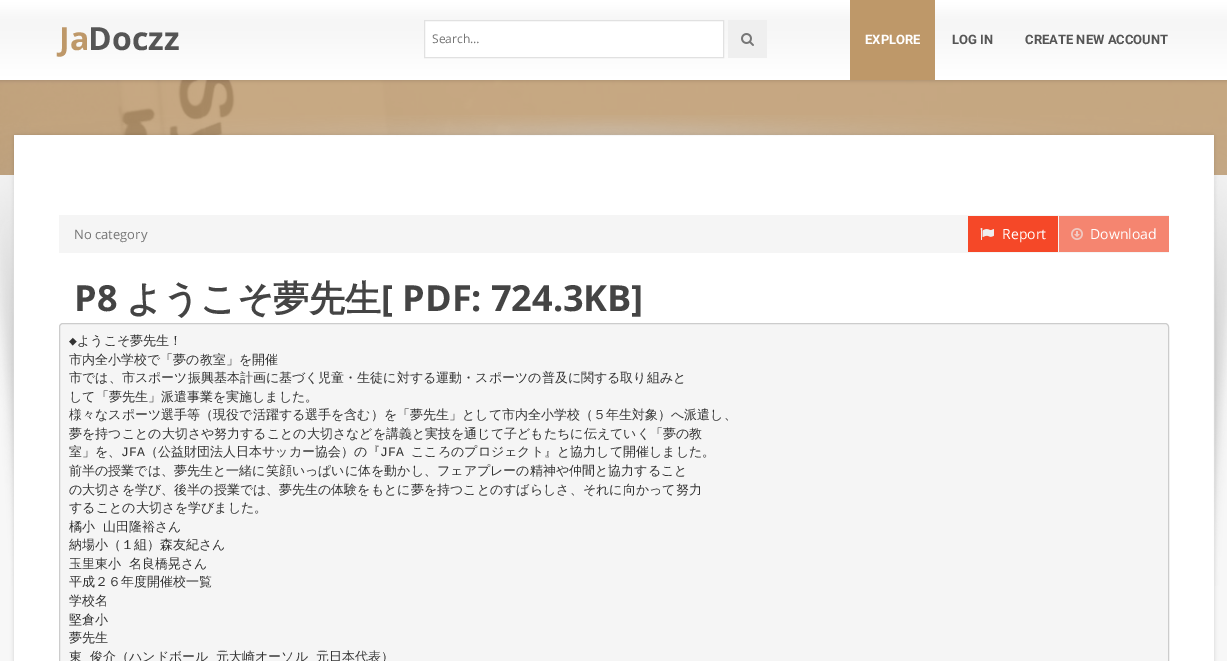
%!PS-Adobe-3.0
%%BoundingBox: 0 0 1227 661
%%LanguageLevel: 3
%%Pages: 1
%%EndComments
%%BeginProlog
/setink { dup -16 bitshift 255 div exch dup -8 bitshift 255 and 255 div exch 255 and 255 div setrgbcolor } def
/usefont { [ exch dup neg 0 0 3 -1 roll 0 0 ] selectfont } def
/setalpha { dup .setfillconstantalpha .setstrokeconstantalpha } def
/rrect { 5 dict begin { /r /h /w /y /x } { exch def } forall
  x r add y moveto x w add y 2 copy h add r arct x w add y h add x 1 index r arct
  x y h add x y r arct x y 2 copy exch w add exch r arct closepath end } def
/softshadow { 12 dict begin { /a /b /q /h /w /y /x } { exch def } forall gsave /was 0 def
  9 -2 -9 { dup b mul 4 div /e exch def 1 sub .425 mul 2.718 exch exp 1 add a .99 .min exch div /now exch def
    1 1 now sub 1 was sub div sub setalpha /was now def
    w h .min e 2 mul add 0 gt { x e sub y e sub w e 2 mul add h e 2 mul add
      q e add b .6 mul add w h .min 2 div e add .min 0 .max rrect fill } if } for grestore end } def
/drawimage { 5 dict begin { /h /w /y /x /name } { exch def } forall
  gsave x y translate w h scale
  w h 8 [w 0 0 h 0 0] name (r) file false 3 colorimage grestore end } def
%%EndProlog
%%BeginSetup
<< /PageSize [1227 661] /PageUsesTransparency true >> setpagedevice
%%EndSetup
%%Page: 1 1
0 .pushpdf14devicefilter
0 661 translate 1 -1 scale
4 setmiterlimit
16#F7F7F7 setink
0 0 1227 661 rectfill
(img3.raw) 0 80 1227 95 drawimage
16#000000 setink
0 1 1227 80 0 1.5 0.12 softshadow
(img1.raw) 0 0 1227 80 drawimage
/OpenSans-Bold 32 usefont
16#BE9869 setink
59 50 moveto (Ja) show
16#555555 setink
88 50 moveto (Doczz) show
16#FFFFFF setink
424.5 20.5 moveto 723.5 20.5 lineto 723.5 57.5 lineto 424.5 57.5 lineto closepath gsave fill grestore
16#E1E1E1 setink
stroke
/OpenSans-Regular 12 usefont
16#757575 setink
432 43 moveto (Search…) show
16#EFEFEF setink
728 20 39 38 rectfill
(img2.raw) 741 33 13 13 drawimage
16#BE9869 setink
850 0 85 80 rectfill
/Roboto-Bold 13 usefont
16#FFFFFF setink
865 44 moveto (EXPLORE) show
16#555555 setink
952 44 moveto (LOG IN) show
1025 44 moveto (CREATE NEW ACCOUNT) show
16#000000 setink
14 135 1200 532 0 2 0.15 softshadow
16#FFFFFF setink
14 135 1200 526 rectfill
(img4.raw) 0 115 1227 471 drawimage
16#F5F5F5 setink
59 215 1110 38 rectfill
/OpenSans-Regular 13 usefont
16#757575 setink
74 239 moveto (No category) show
16#F54828 setink
968 216 90 36 rectfill
(img5.raw) 980 228 14 12 drawimage
/OpenSans-Regular 14 usefont
16#FFFFFF setink
1002 239 moveto (Report) show
16#F58570 setink
1059 216 110 36 rectfill
(img6.raw) 1071 228 12 12 drawimage
16#FFFFFF setink
1090 239 moveto (Download) show
/OpenSans-Bold 36 usefont
16#444444 setink
74 311 moveto (P8) show
/WenQuanYiZenHei-Bold 36 usefont
126 311 moveto (ようこそ夢先生) show
/OpenSans-Bold 36 usefont
381 311 moveto ([ PDF: 724.3KB]) show
16#F5F5F5 setink
59.5 323.5 1109 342 3.5 rrect gsave fill grestore
16#CCCCCC setink
stroke
/DejaVuSansMono-Regular 13 usefont
16#333333 setink
69 345 moveto (◆) show
/WenQuanYiZenHei-Medium 13 usefont
[
    [(ようこそ夢先生！) 77 345]
    [(市内全小学校で「夢の教室」を開催) 69 364]
    [(市では、市スポーツ振興基本計画に基づく児童・生徒に対する運動・スポーツの普及に関する取り組みと) 69 382]
    [(して「夢先生」派遣事業を実施しました。) 69 401]
    [(様々なスポーツ選手等（現役で活躍する選手を含む）を「夢先生」として市内全小学校（５年生対象）へ派遣し、) 69 419]
    [(夢を持つことの大切さや努力することの大切さなどを講義と実技を通じて子どもたちに伝えていく「夢の教) 69 438]
    [(室」を、) 69 456]
] { aload pop moveto show } forall
/LiberationMono-Regular 13 usefont
121 456 moveto (JFA) show
/WenQuanYiZenHei-Medium 13 usefont
145 456 moveto (（公益財団法人日本サッカー協会）の『) show
/LiberationMono-Regular 13 usefont
380 456 moveto (JFA) show
/WenQuanYiZenHei-Medium 13 usefont
[
    [(こころのプロジェクト』と協力して開催しました。) 411 456]
    [(前半の授業では、夢先生と一緒に笑顔いっぱいに体を動かし、フェアプレーの精神や仲間と協力すること) 69 475]
    [(の大切さを学び、後半の授業では、夢先生の体験をもとに夢を持つことのすばらしさ、それに向かって努力) 69 494]
    [(することの大切さを学びました。) 69 512]
    [(橘小) 69 531]
    [(山田隆裕さん) 103 531]
    [(納場小（１組）森友紀さん) 69 549]
    [(玉里東小) 69 568]
    [(名良橋晃さん) 129 568]
    [(平成２６年度開催校一覧) 69 586]
    [(学校名) 69 605]
    [(堅倉小) 69 624]
    [(夢先生) 69 642]
    [(東) 69 661]
    [(俊介（ハンドボール) 90 661]
    [(元大崎オーソル) 216 661]
    [(元日本代表）) 316 661]
] { aload pop moveto show } forall
.poppdf14devicefilter showpage
%%EOF
